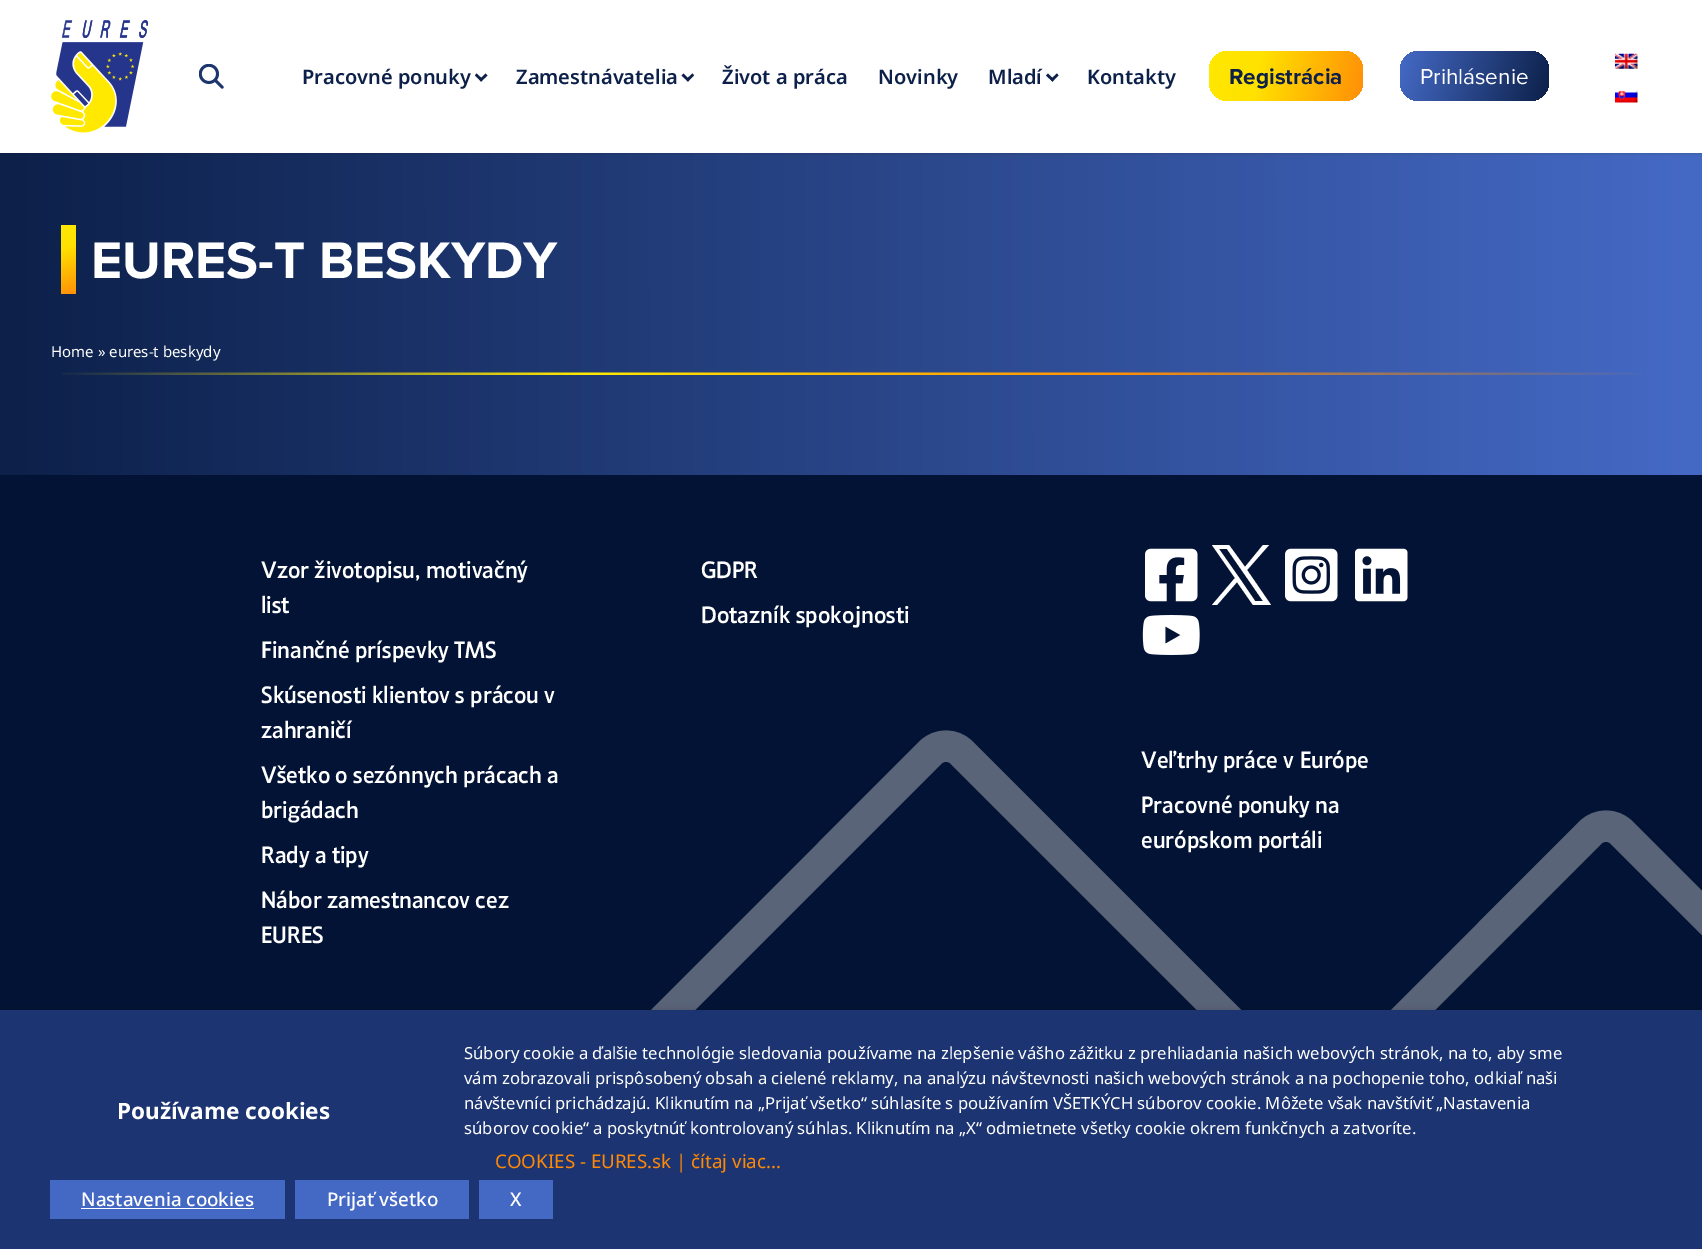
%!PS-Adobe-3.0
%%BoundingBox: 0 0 1702 1249
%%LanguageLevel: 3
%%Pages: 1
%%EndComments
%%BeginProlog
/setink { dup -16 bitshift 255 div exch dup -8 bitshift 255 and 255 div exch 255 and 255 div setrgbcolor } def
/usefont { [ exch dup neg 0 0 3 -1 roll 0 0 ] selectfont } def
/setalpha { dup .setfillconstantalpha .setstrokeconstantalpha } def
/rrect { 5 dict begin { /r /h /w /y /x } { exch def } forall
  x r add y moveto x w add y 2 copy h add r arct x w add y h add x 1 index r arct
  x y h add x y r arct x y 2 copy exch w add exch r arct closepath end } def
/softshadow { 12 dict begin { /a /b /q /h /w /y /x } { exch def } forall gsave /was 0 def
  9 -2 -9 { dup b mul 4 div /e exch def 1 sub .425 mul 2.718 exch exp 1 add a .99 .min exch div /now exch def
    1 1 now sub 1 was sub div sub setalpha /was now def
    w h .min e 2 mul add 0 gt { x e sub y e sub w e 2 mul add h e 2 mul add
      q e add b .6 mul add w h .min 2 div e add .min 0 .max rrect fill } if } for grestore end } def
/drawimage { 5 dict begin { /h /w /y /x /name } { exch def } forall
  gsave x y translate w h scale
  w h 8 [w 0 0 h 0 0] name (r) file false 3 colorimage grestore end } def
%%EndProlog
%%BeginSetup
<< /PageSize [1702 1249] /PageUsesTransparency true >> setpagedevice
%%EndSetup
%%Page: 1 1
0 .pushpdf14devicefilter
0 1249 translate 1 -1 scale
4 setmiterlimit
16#FFFFFF setink
0 0 1702 1249 rectfill
gsave 0 153 moveto 1702 153 lineto 1702 475 lineto 0 475 lineto closepath clip newpath
<< /ShadingType 2 /ColorSpace /DeviceRGB /Coords [0 238 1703 237] /Extend [true true] /Function << /FunctionType 2 /Domain [0 1] /C0 [0.047 0.125 0.286] /C1 [0.271 0.416 0.776] /N 1 >> >> shfill grestore
16#000000 setink
1 3 1700 150 0 1 0.1 softshadow
0 1 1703 153 0 2 0.1 softshadow
16#FFFFFF setink
0 0 1702 153 rectfill
(img1.raw) 51 20 98 113 drawimage
(img2.raw) 199 64 25 25 drawimage
/NotoSans-SemiBold 20 usefont
16#0C2049 setink
302 84 moveto (Pracovné ponuky) show
485.5 73.5 moveto 487.5 75.5 lineto 481 81.5 lineto 479.5 79.5 lineto closepath fill
476.5 73.5 moveto 483 79.5 lineto 481 81.5 lineto 475 75.5 lineto closepath fill
516 84 moveto (Zamestnávatelia) show
692.5 73.5 moveto 694 75.5 lineto 688 81.5 lineto 686 79.5 lineto closepath fill
683.5 73.5 moveto 689.5 79.5 lineto 688 81.5 lineto 681.5 75.5 lineto closepath fill
[
    [(Život a práca) 722 84]
    [(Novinky) 878 84]
    [(Mladí) 988 84]
] { aload pop moveto show } forall
1057 73.5 moveto 1058.5 75.5 lineto 1052.5 81.5 lineto 1050.5 79.5 lineto closepath fill
1048 73.5 moveto 1054 79.5 lineto 1052.5 81.5 lineto 1046 75.5 lineto closepath fill
1087 84 moveto (Kontakty) show
gsave 1209 51 154 50 19 rrect clip newpath
<< /ShadingType 2 /ColorSpace /DeviceRGB /Coords [1207 60 1364 93] /Extend [true true] /Function << /FunctionType 3 /Domain [0 1] /Functions [<< /FunctionType 2 /Domain [0 1] /C0 [1 0.91 0] /C1 [1 0.886 0] /N 1 >> << /FunctionType 2 /Domain [0 1] /C0 [1 0.886 0] /C1 [1 0.561 0.027] /N 1 >>] /Bounds [0.33] /Encode [0 1 0 1] >> >> shfill grestore
/ProximaNova-Bold 22.5 usefont
1229 84 moveto (Registrácia) show
gsave 1400 51 149 50 19 rrect clip newpath
<< /ShadingType 2 /ColorSpace /DeviceRGB /Coords [1399 56 1550 97] /Extend [true true] /Function << /FunctionType 2 /Domain [0 1] /C0 [0.271 0.416 0.776] /C1 [0.047 0.125 0.286] /N 1 >> >> shfill grestore
/ProximaNova-Regular 22.5 usefont
16#FFFFFF setink
1420 84 moveto (Prihlásenie) show
(img3.raw) 1615 53 23 16 drawimage
(img4.raw) 1615 90 23 13 drawimage
gsave 61 225 moveto 76 225 lineto 76 294 lineto 61 294 lineto closepath clip newpath
<< /ShadingType 2 /ColorSpace /DeviceRGB /Coords [57 227 81 292] /Extend [true true] /Function << /FunctionType 3 /Domain [0 1] /Functions [<< /FunctionType 2 /Domain [0 1] /C0 [1 0.91 0] /C1 [1 0.886 0] /N 1 >> << /FunctionType 2 /Domain [0 1] /C0 [1 0.886 0] /C1 [1 0.561 0.027] /N 1 >>] /Bounds [0.32] /Encode [0 1 0 1] >> >> shfill grestore
/ProximaNova-Bold 53.25 usefont
91 278 moveto (EURES-T BESKYDY) show
(img5.raw) 62 372 1579 3 drawimage
/NotoSans-Regular 15 usefont
51 357 moveto (Home » eures-t beskydy) show
16#031335 setink
0 475 1702 535 rectfill
/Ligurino-Regular 22.5 usefont
16#FFFFFF setink
[
    [(Vzor životopisu, motivačný) 261 578]
    [(list) 261 613]
    [(Finančné príspevky TMS) 261 658]
    [(Skúsenosti klientov s prácou v) 261 703]
    [(zahraničí) 261 738]
] { aload pop moveto show } forall
16#5A6479 setink
31.2 setlinewidth
89 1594.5 moveto 930.5 752.5 lineto 939 744 953 744 961.5 752.5 curveto 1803.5 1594.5 lineto 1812 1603 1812 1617 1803.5 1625.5 curveto 961.5 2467 lineto 953 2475.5 939 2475.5 930.5 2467 curveto 89 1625.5 lineto 80.5 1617 80.5 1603 89 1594.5 curveto closepath stroke
16#FFFFFF setink
[
    [(Všetko o sezónnych prácach a) 261 783]
    [(brigádach) 261 818]
    [(Rady a tipy) 261 863]
    [(Nábor zamestnancov cez) 261 908]
    [(EURES) 261 943]
    [(GDPR) 701 578]
    [(Dotazník spokojnosti) 701 623]
] { aload pop moveto show } forall
(img6.raw) 1145 548 53 54 drawimage
1247 570 moveto 1269 545 lineto 1263 545 lineto 1245 567 lineto 1229 545 lineto 1212 545 lineto 1235 578 lineto 1212 605 lineto 1217 605 lineto 1237 582 lineto 1253 605 lineto 1271 605 lineto closepath 1240 579 moveto 1219 549 lineto 1227 549 lineto 1263 601 lineto 1255 601 lineto closepath fill
(img7.raw) 1285 548 53 54 drawimage
(img8.raw) 1355 548 53 54 drawimage
(img9.raw) 1142 615 58 40 drawimage
1141 768 moveto (Veľtrhy práce v Európe) show
0.38 setalpha
16#E7E7E7 setink
749 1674.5 moveto 1590.5 832.5 lineto 1599 824 1613 824 1621.5 832.5 curveto 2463.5 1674.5 lineto 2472 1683 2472 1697 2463.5 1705.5 curveto 1621.5 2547 lineto 1613 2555.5 1599 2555.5 1590.5 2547 curveto 749 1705.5 lineto 740.5 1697 740.5 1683 749 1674.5 curveto closepath stroke
1 setalpha
16#FFFFFF setink
1141 813 moveto (Pracovné ponuky na) show
1141 848 moveto (európskom portáli) show
16#000000 setink
0 1016 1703 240 0 6 0.5 softshadow
16#1C3471 setink
0 1010 1702 239 rectfill
/NotoSans-Bold 22.5 usefont
16#FFFFFF setink
117 1119 moveto (Používame cookies) show
/NotoSans-Regular 16.67 usefont
[
    [(Súbory cookie a ďalšie technológie sledovania používame na zlepšenie vášho zážitku z prehliadania našich webových stránok, na to, aby sme) 464 1059]
    [(vám zobrazovali prispôsobený obsah a cielené reklamy, na analýzu návštevnosti našich webových stránok a na pochopenie toho, odkiaľ naši) 464 1084]
    [(návštevníci prichádzajú. Kliknutím na „Prijať všetko“ súhlasíte s používaním VŠETKÝCH súborov cookie. Môžete však navštíviť „Nastavenia) 464 1109]
    [(súborov cookie“ a poskytnúť kontrolovaný súhlas. Kliknutím na „X“ odmietnete všetky cookie okrem funkčnych a zatvoríte.) 464 1134]
] { aload pop moveto show } forall
/NotoSans-Regular 18.75 usefont
16#FF8905 setink
495 1168 moveto (COOKIES - EURES.sk | čítaj viac...) show
16#4469C4 setink
50 1180 235 39 rectfill
/NotoSans-Medium 18.75 usefont
16#FFFFFF setink
81 1206 moveto (Nastavenia cookies) show
81 1208 173 1 rectfill
16#4469C4 setink
295 1180 174 39 rectfill
16#FFFFFF setink
327 1206 moveto (Prijať všetko) show
16#4469C4 setink
479 1180 74 39 rectfill
16#FFFFFF setink
510 1206 moveto (X) show
.poppdf14devicefilter showpage
%%EOF
